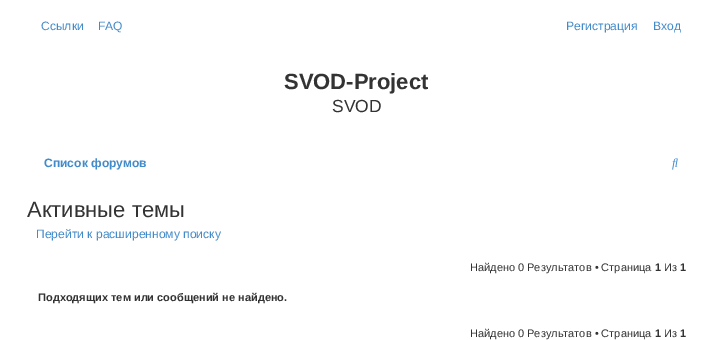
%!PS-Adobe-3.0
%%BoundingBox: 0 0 713 340
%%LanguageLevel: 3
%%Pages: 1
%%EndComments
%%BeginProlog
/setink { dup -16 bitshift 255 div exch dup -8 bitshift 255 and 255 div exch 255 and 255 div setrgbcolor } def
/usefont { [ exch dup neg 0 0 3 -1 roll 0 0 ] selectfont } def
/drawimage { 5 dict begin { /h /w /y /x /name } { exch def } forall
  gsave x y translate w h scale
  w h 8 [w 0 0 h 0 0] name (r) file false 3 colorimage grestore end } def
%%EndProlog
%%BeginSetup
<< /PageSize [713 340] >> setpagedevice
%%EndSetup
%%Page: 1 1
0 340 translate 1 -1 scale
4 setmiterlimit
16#FFFFFF setink
0 0 713 340 rectfill
/LiberationSans-Regular 12.1 usefont
16#428BCA setink
[
    [(Ссылки) 41 30]
    [(FAQ) 98 30]
    [(Регистрация) 566 30]
    [(Вход) 653 30]
] { aload pop moveto show } forall
/LiberationSans-Bold 22 usefont
16#333333 setink
284 89 moveto (SVOD-Project) show
/LiberationSans-Regular 17.5 usefont
332 112 moveto (SVOD) show
/LiberationSans-Bold 12.1 usefont
16#428BCA setink
44 167 moveto (Список форумов) show
(img1.raw) 672 158 6 12 drawimage
/LiberationSans-Regular 22 usefont
16#333333 setink
27 217 moveto (Активные темы) show
/LiberationSans-Regular 12.1 usefont
16#428BCA setink
36 238 moveto (Перейти к расширенному поиску) show
/LiberationSans-Regular 11 usefont
16#333333 setink
470 271 moveto (Найдено 0 Результатов • Страница) show
/LiberationSans-Bold 11 usefont
655 271 moveto (1) show
/LiberationSans-Regular 11 usefont
664 271 moveto (Из) show
/LiberationSans-Bold 11 usefont
680 271 moveto (1) show
38 301 moveto (Подходящих тем или сообщений не найдено.) show
/LiberationSans-Regular 11 usefont
470 337 moveto (Найдено 0 Результатов • Страница) show
/LiberationSans-Bold 11 usefont
655 337 moveto (1) show
/LiberationSans-Regular 11 usefont
664 337 moveto (Из) show
/LiberationSans-Bold 11 usefont
680 337 moveto (1) show
showpage
%%EOF
